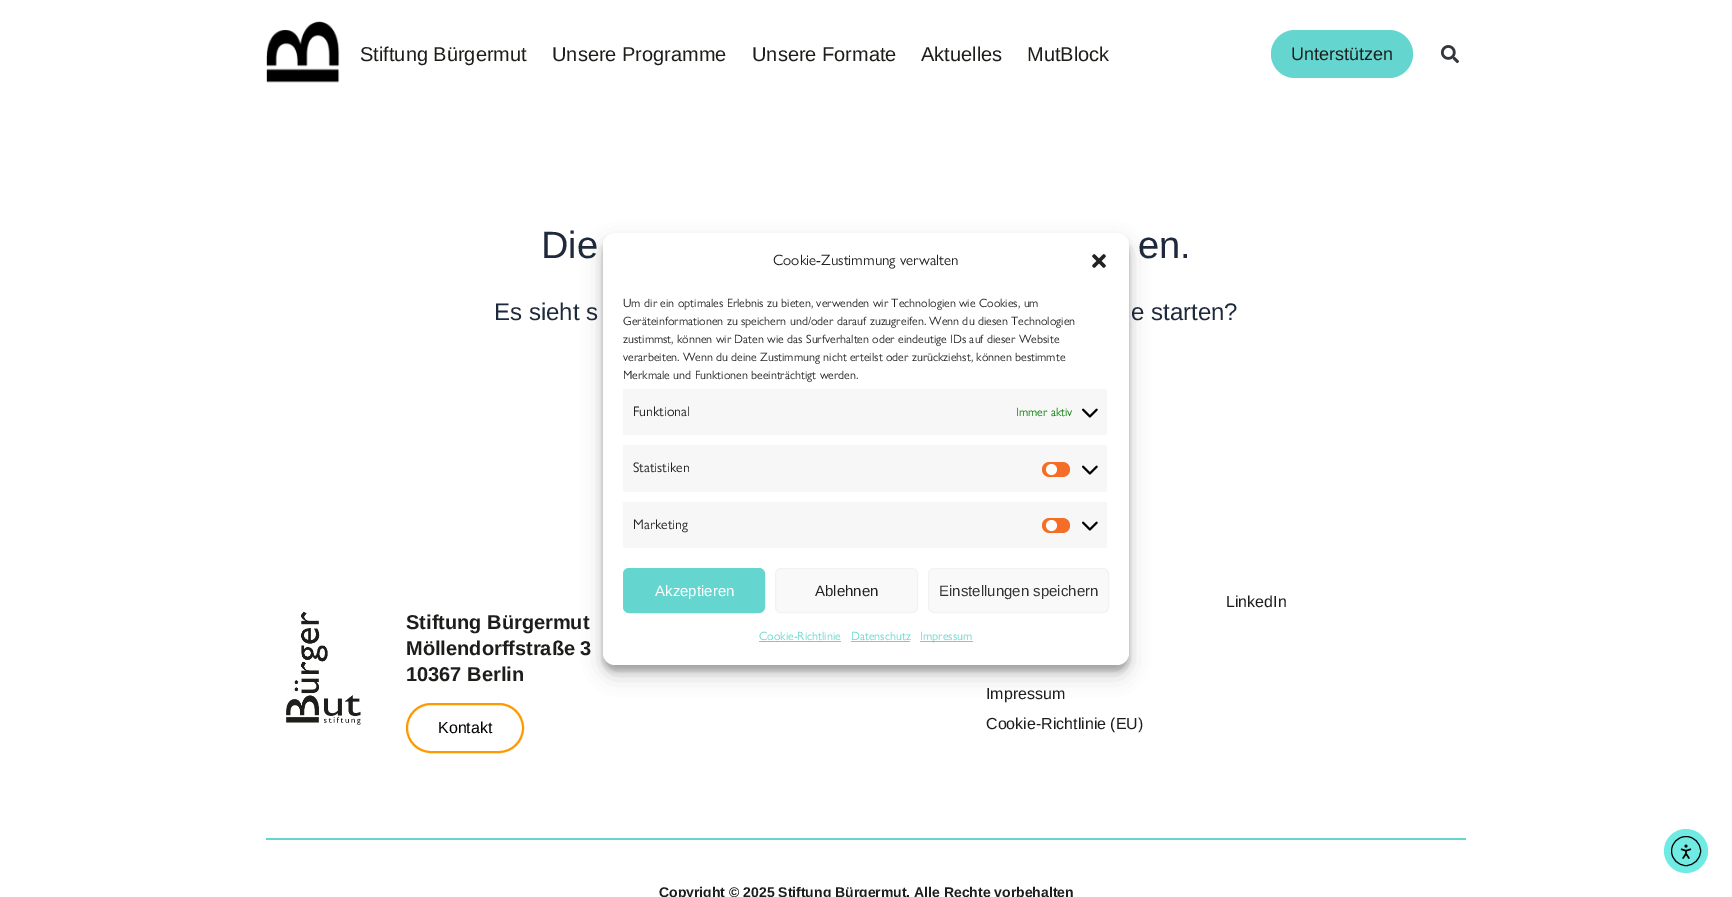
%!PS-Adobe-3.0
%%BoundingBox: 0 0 1732 897
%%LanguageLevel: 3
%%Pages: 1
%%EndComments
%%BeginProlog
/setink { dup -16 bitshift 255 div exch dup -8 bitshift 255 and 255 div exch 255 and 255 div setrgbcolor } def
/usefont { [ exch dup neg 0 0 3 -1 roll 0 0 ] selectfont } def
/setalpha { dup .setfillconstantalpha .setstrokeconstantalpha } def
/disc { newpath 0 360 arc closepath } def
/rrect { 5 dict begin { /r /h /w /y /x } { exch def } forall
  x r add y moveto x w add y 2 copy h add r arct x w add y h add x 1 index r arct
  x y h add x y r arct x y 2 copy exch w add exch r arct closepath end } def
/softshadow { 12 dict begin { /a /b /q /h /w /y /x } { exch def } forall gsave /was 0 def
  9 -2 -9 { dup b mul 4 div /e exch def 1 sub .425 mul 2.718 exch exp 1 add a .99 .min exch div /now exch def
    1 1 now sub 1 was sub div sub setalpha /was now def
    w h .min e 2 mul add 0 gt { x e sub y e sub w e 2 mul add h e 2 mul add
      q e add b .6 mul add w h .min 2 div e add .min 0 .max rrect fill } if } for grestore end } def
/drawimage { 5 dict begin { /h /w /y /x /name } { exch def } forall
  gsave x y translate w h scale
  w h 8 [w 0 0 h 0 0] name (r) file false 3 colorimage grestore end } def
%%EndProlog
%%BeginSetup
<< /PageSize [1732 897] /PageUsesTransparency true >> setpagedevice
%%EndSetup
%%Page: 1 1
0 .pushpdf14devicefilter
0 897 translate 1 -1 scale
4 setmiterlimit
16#FFFFFF setink
0 0 1732 897 rectfill
(img1.raw) 266 21 74 62 drawimage
/LiberationSans-Regular 20 usefont
16#1D1D1B setink
[
    [(Stiftung Bürgermut) 360 61]
    [(Unsere Programme) 552 61]
    [(Unsere Formate) 752 61]
    [(Aktuelles) 921 61]
    [(MutBlock) 1027 61]
] { aload pop moveto show } forall
16#65D6CF setink
1271 30 142 48 24 rrect fill
/LiberationSans-Regular 18 usefont
16#1D1D1B setink
1291 60 moveto (Unterstützen) show
(img2.raw) 1440 45 19 19 drawimage
/LiberationSans-Regular 38 usefont
16#1E293B setink
541 258 moveto (Die) show
1138 258 moveto (en.) show
/LiberationSans-Regular 24 usefont
494 320 moveto (Es sieht s) show
1131 320 moveto (e starten?) show
/LiberationSans-Regular 16 usefont
16#1D1D1B setink
1226 607 moveto (LinkedIn) show
(img3.raw) 285 611 76 114 drawimage
/LiberationSans-Bold 20 usefont
[
    [(Stiftung Bürgermut) 406 629]
    [(Möllendorffstraße 3) 406 655]
    [(10367 Berlin) 406 681]
] { aload pop moveto show } forall
16#FF9900 setink
2 setlinewidth
407 704 116 48 24 rrect stroke
/LiberationSans-Regular 16 usefont
16#000000 setink
438 733 moveto (Kontakt) show
16#1D1D1B setink
986 699 moveto (Impressum) show
986 729 moveto (Cookie-Richtlinie \(EU\)) show
16#65D6CF setink
266 838 1200 2 rectfill
/LiberationSans-Bold 14 usefont
16#1D1D1B setink
659 897 moveto (Copyright © 2025 Stiftung Bürgermut. Alle Rechte vorbehalten) show
16#000000 setink
603 239 526 432 12 3 0.23 softshadow
603 243 526 432 12 10 0.19 softshadow
16#FFFFFF setink
603 233 526 432 12 rrect fill
/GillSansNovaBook-Regular 15 usefont
16#222222 setink
773 265 moveto (Cookie-Zustimmung verwalten) show
(img4.raw) 1092 254 14 14 drawimage
/GillSansNovaBook-Regular 12 usefont
[
    [(Um dir ein optimales Erlebnis zu bieten, verwenden wir Technologien wie Cookies, um) 623 307]
    [(Geräteinformationen zu speichern und/oder darauf zuzugreifen. Wenn du diesen Technologien) 623 325]
    [(zustimmst, können wir Daten wie das Surfverhalten oder eindeutige IDs auf dieser Website) 623 343]
    [(verarbeiten. Wenn du deine Zustimmung nicht erteilst oder zurückziehst, können bestimmte) 623 361]
    [(Merkmale und Funktionen beeinträchtigt werden.) 623 379]
] { aload pop moveto show } forall
16#F7F7F7 setink
623 389 484 46 rectfill
/GillSansNovaBook-Regular 14 usefont
16#222222 setink
633 416 moveto (Funktional) show
/GillSansNovaBook-Regular 12 usefont
16#008000 setink
1016 416 moveto (Immer aktiv) show
(img5.raw) 1082 408 16 10 drawimage
16#F7F7F7 setink
623 445 484 47 rectfill
/GillSansNovaBook-Regular 14 usefont
16#222222 setink
633 472 moveto (Statistiken) show
16#F56E28 setink
1042 462 28 15 7.5 rrect fill
16#FFFFFF setink
1051.5 469.5 5.5 disc fill
(img5.raw) 1082 465 16 10 drawimage
16#F7F7F7 setink
623 502 484 46 rectfill
16#222222 setink
633 529 moveto (Marketing) show
16#F56E28 setink
1042 518 28 15 7.5 rrect fill
16#FFFFFF setink
1051.5 525.5 5.5 disc fill
(img5.raw) 1082 521 16 10 drawimage
16#65D6CF setink
623.5 568.5 141 44 5.5 rrect gsave fill grestore
1 setlinewidth
stroke
/LiberationSans-Regular 15 usefont
16#FFFFFF setink
655 596 moveto (Akzeptieren) show
16#F9F9F9 setink
775.5 568.5 142 44 5.5 rrect gsave fill grestore
16#F2F2F2 setink
stroke
16#222222 setink
815 596 moveto (Ablehnen) show
16#F9F9F9 setink
928.5 568.5 180 44 5.5 rrect gsave fill grestore
16#F2F2F2 setink
stroke
16#333333 setink
939 596 moveto (Einstellungen speichern) show
/GillSansNovaBook-Regular 12 usefont
16#65D6CF setink
759 640 moveto (Cookie-Richtlinie) show
759 641 82 1 rectfill
851 640 moveto (Datenschutz) show
851 641 59 1 rectfill
920 641 53 1 rectfill
920 640 moveto (Impressum) show
16#6FEBE3 setink
1686 851 22 disc fill
16#000000 setink
1686 851 14.5 disc stroke
(img6.raw) 1680 844 12 15 drawimage
.poppdf14devicefilter showpage
%%EOF
